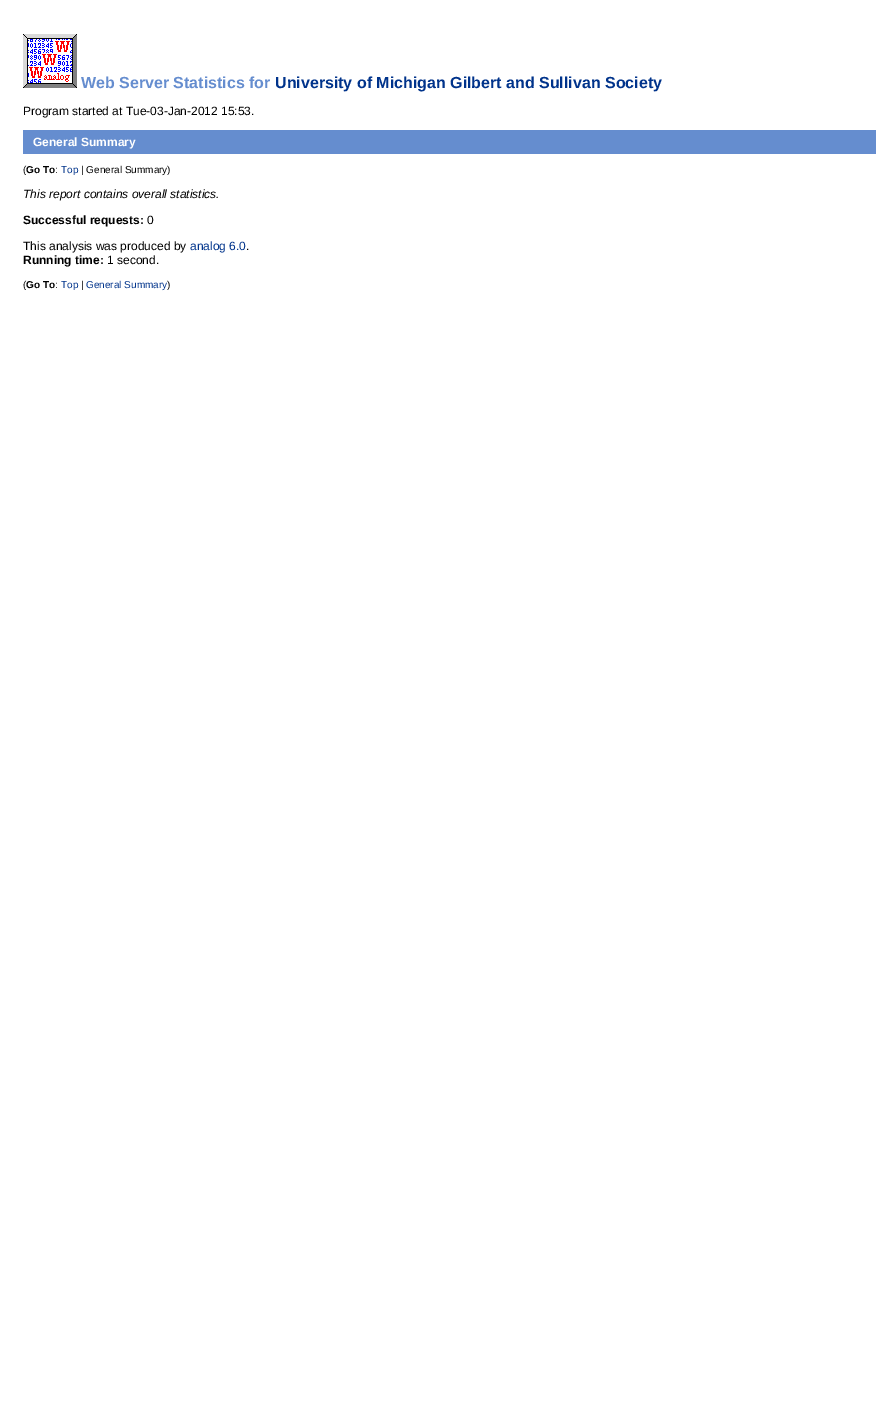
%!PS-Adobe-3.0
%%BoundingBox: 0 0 879 1416
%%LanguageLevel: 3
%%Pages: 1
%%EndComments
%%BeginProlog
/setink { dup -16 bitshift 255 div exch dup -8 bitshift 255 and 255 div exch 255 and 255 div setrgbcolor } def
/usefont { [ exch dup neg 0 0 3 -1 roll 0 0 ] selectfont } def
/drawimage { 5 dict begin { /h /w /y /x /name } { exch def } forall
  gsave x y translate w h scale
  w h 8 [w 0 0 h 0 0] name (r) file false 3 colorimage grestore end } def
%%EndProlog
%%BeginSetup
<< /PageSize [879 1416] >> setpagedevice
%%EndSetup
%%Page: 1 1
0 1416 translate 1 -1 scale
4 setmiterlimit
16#FFFFFF setink
0 0 879 1416 rectfill
(img1.raw) 23 34 54 54 drawimage
/LiberationSans-Bold 16 usefont
16#658DCF setink
81 88 moveto (Web Server Statistics for) show
16#00338B setink
275 88 moveto (University of Michigan Gilbert and Sullivan Society) show
/LiberationSans-Regular 12 usefont
16#000000 setink
23 115 moveto (Program started at Tue-03-Jan-2012 15:53.) show
16#658DCF setink
23 130 853 24 rectfill
/LiberationSans-Bold 12 usefont
16#FFFFFF setink
33 146 moveto (General Summary) show
/LiberationSans-Regular 10 usefont
16#000000 setink
23 173 moveto (\() show
/LiberationSans-Bold 10 usefont
26 173 moveto (Go To) show
/LiberationSans-Regular 10 usefont
55 173 moveto (:) show
16#00338B setink
61 173 moveto (Top) show
16#000000 setink
81 173 moveto (| General Summary\)) show
/LiberationSans-Italic 12 usefont
23 198 moveto (This report contains overall statistics.) show
/LiberationSans-Bold 12 usefont
23 224 moveto (Successful requests:) show
/LiberationSans-Regular 12 usefont
147 224 moveto (0) show
23 250 moveto (This analysis was produced by) show
16#00338B setink
190 250 moveto (analog 6.0) show
16#000000 setink
246 250 moveto (.) show
/LiberationSans-Bold 12 usefont
23 264 moveto (Running time:) show
/LiberationSans-Regular 12 usefont
107 264 moveto (1 second.) show
/LiberationSans-Regular 10 usefont
23 288 moveto (\() show
/LiberationSans-Bold 10 usefont
26 288 moveto (Go To) show
/LiberationSans-Regular 10 usefont
55 288 moveto (:) show
16#00338B setink
61 288 moveto (Top) show
16#000000 setink
81 288 moveto (|) show
16#00338B setink
86 288 moveto (General Summary) show
16#000000 setink
167 288 moveto (\)) show
showpage
%%EOF
